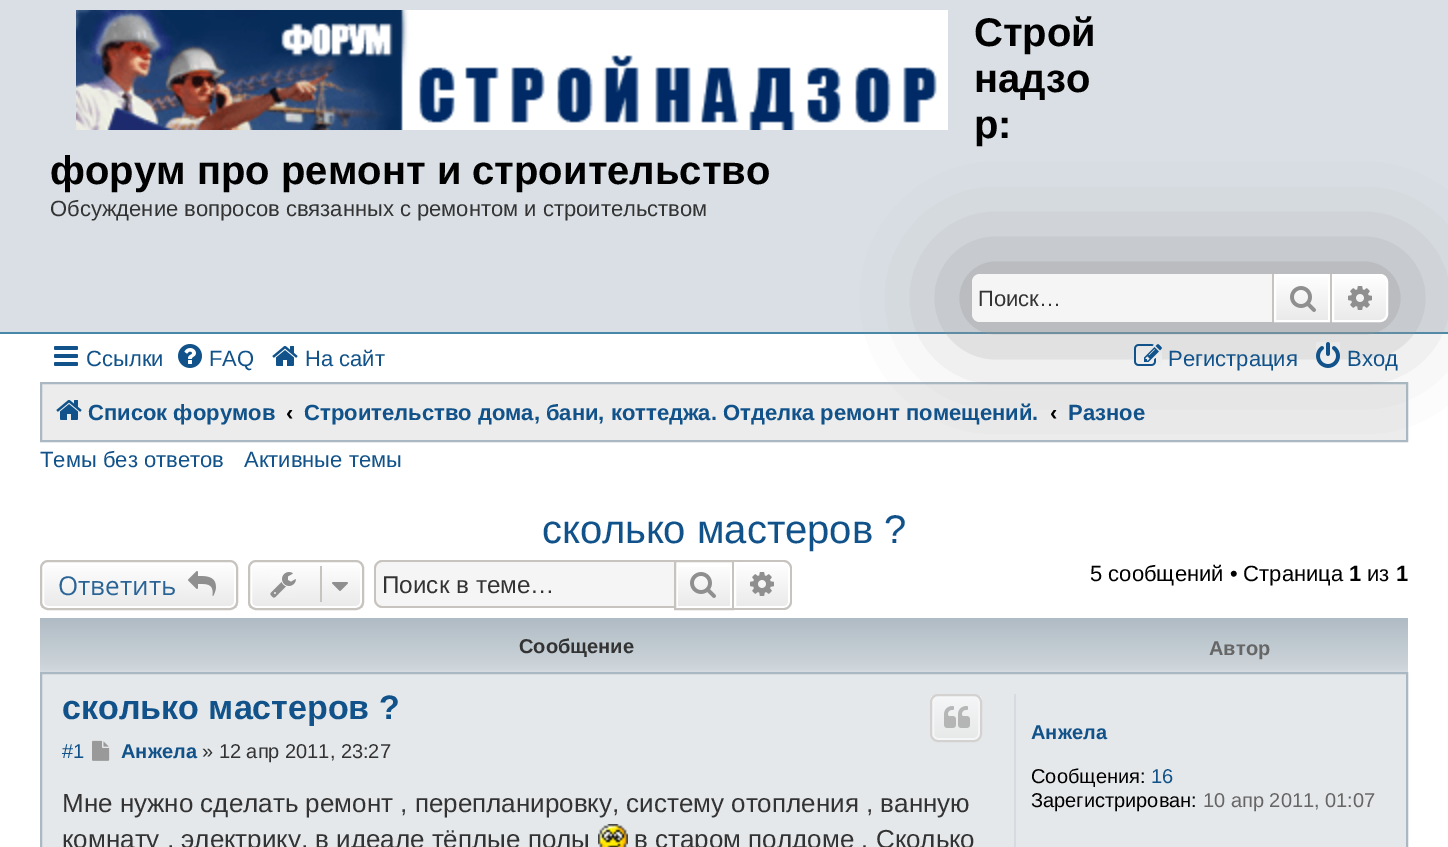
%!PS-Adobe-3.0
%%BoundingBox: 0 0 1448 847
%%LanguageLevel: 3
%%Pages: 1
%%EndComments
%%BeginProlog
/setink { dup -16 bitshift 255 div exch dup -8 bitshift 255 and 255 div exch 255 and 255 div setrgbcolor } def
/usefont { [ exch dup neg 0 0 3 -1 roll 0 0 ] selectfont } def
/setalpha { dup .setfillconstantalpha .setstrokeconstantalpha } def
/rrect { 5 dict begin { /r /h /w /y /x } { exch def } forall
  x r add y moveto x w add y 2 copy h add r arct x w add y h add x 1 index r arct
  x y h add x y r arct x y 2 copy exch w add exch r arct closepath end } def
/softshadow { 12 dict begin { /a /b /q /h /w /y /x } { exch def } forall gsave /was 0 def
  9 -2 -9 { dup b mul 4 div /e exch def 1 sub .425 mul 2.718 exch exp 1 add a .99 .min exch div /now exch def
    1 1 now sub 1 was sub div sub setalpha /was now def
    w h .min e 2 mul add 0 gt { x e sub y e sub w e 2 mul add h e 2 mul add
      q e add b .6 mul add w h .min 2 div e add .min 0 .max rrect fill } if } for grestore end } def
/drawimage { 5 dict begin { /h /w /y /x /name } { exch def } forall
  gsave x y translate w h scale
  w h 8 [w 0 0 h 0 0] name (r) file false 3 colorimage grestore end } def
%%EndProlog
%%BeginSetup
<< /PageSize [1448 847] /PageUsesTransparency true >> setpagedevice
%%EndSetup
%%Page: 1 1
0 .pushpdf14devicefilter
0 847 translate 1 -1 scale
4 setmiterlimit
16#FFFFFF setink
0 0 1448 847 rectfill
16#D9DFE4 setink
0 0 1448 332 rectfill
16#4787A7 setink
0 332 1448 2 rectfill
(img1.raw) 76 10 872 120 drawimage
/LiberationSans-Bold 40 usefont
16#000000 setink
[
    [(Строй) 974 46]
    [(надзо) 974 92]
    [(р:) 974 138]
    [(форум про ремонт и строительство) 50 184]
] { aload pop moveto show } forall
/LiberationSans-Regular 22 usefont
16#333333 setink
50 216 moveto (Обсуждение вопросов связанных с ремонтом и строительством) show
16#ECECEC setink
41 383 moveto 1407 383 lineto 1407 441 lineto 41 441 lineto closepath gsave fill grestore
16#A9B8C2 setink
2 setlinewidth
stroke
16#999999 setink
972 274 416 48 8 50 1 softshadow
16#F5F5F5 setink
980 274 moveto 1272 274 lineto 1272 322 lineto 980 322 lineto 975.5 322 972 318.5 972 314 curveto 972 282 lineto 972 277.5 975.5 274 980 274 curveto closepath fill
16#333333 setink
978 306 moveto (Поиск…) show
gsave 1276 276 moveto 1328 276 lineto 1328 320 lineto 1276 320 lineto closepath clip newpath
<< /ShadingType 2 /ColorSpace /DeviceRGB /Coords [1302 274 1302 322] /Extend [true true] /Function << /FunctionType 2 /Domain [0 1] /C0 [1 1 1] /C1 [0.914 0.914 0.914] /N 1 >> >> shfill grestore
16#FFFFFF setink
1275 275 54 46 rectstroke
16#C7C3BF setink
1330 274 2 48 rectfill
1272 274 2 48 rectfill
(img2.raw) 1290 286 26 26 drawimage
gsave 1333 275 moveto 1380 275 lineto 1384 275 1387 278 1387 282 curveto 1387 314 lineto 1387 318 1384 321 1380 321 curveto 1333 321 lineto closepath clip newpath
<< /ShadingType 2 /ColorSpace /DeviceRGB /Coords [1360 274 1360 322] /Extend [true true] /Function << /FunctionType 2 /Domain [0 1] /C0 [1 1 1] /C1 [0.914 0.914 0.914] /N 1 >> >> shfill grestore
16#FFFFFF setink
1333 275 moveto 1380 275 lineto 1384 275 1387 278 1387 282 curveto 1387 314 lineto 1387 318 1384 321 1380 321 curveto 1333 321 lineto closepath stroke
(img3.raw) 1348 286 24 24 drawimage
(img4.raw) 54 346 24 20 drawimage
16#105289 setink
86 366 moveto (Ссылки) show
(img5.raw) 178 344 24 24 drawimage
209 366 moveto (FAQ) show
(img6.raw) 272 346 26 20 drawimage
305 366 moveto (На сайт) show
(img7.raw) 1134 344 28 22 drawimage
1168 366 moveto (Регистрация) show
(img8.raw) 1316 342 24 26 drawimage
1347 366 moveto (Вход) show
(img9.raw) 56 400 26 20 drawimage
/LiberationSans-Bold 22 usefont
88 420 moveto (Список форумов) show
16#000000 setink
286 420 moveto (‹) show
16#105289 setink
304 420 moveto (Строительство дома, бани, коттеджа. Отделка ремонт помещений.) show
16#000000 setink
1050 420 moveto (‹) show
16#105289 setink
1068 420 moveto (Разное) show
/LiberationSans-Regular 22 usefont
40 467 moveto (Темы без ответов) show
244 467 moveto (Активные темы) show
/LiberationSans-Regular 40 usefont
542 543 moveto (сколько мастеров ?) show
gsave
40 560 198 50 8 rrect clip newpath
gsave 40 562 moveto 238 562 lineto 238 608 lineto 40 608 lineto closepath clip newpath
<< /ShadingType 2 /ColorSpace /DeviceRGB /Coords [139 562 139 608] /Extend [true true] /Function << /FunctionType 2 /Domain [0 1] /C0 [1 1 1] /C1 [0.914 0.914 0.914] /N 1 >> >> shfill grestore
grestore
16#FFFFFF setink
43 563 192 44 5 rrect stroke
16#C7C3BF setink
41 561 196 48 7 rrect stroke
/OpenSans-Regular 26 usefont
16#2A6496 setink
58 595 moveto (Ответить) show
(img10.raw) 188 571 28 25 drawimage
gsave
248 560 116 50 8 rrect clip newpath
gsave 248 562 moveto 364 562 lineto 364 608 lineto 248 608 lineto closepath clip newpath
<< /ShadingType 2 /ColorSpace /DeviceRGB /Coords [306 562 306 608] /Extend [true true] /Function << /FunctionType 2 /Domain [0 1] /C0 [1 1 1] /C1 [0.914 0.914 0.914] /N 1 >> >> shfill grestore
grestore
16#FFFFFF setink
251 563 110 44 5 rrect stroke
16#C7C3BF setink
249 561 114 48 7 rrect stroke
(img11.raw) 270 572 26 26 drawimage
320 566 2 36 rectfill
(img12.raw) 332 582 16 9 drawimage
16#F5F5F5 setink
382 562 moveto 674 562 lineto 674 606 lineto 382 606 lineto 378.5 606 376 603.5 376 600 curveto 376 568 lineto 376 564.5 378.5 562 382 562 curveto closepath fill
16#C7C3BF setink
382 560 moveto 674 560 lineto 674 608 lineto 382 608 lineto 378 608 374 604 374 600 curveto 374 568 lineto 374 564 378 560 382 560 curveto closepath 382 562 moveto 674 562 lineto 674 606 lineto 382 606 lineto 379 606 376 603 376 600 curveto 376 568 lineto 376 565 379 562 382 562 curveto closepath eofill
/LiberationSans-Regular 24.25 usefont
16#333333 setink
382 593 moveto (Поиск в теме…) show
gsave 678 567 moveto 730 567 lineto 730 606 lineto 678 606 lineto closepath clip newpath
<< /ShadingType 2 /ColorSpace /DeviceRGB /Coords [704 562 704 608] /Extend [true true] /Function << /FunctionType 2 /Domain [0 1] /C0 [1 1 1] /C1 [0.914 0.914 0.914] /N 1 >> >> shfill grestore
16#C7C3BF setink
675 561 58 48 rectstroke
(img13.raw) 690 572 26 26 drawimage
gsave 735 563 moveto 784 563 lineto 787 563 789 565 789 568 curveto 789 602 lineto 789 605 787 607 784 607 curveto 735 607 lineto closepath clip newpath
<< /ShadingType 2 /ColorSpace /DeviceRGB /Coords [762 562 762 608] /Extend [true true] /Function << /FunctionType 2 /Domain [0 1] /C0 [1 1 1] /C1 [0.914 0.914 0.914] /N 1 >> >> shfill grestore
16#FFFFFF setink
735 563 moveto 784 563 lineto 787 563 789 565 789 568 curveto 789 602 lineto 789 605 787 607 784 607 curveto 735 607 lineto closepath stroke
16#C7C3BF setink
734 560 moveto 784 560 lineto 788 560 792 564 792 568 curveto 792 602 lineto 792 606 788 610 784 610 curveto 734 610 lineto closepath 734 562 moveto 784 562 lineto 787 562 790 565 790 568 curveto 790 602 lineto 790 605 787 608 784 608 curveto 734 608 lineto closepath eofill
(img14.raw) 750 572 24 24 drawimage
/LiberationSans-Regular 22 usefont
16#000000 setink
1090 581 moveto (5 сообщений • Страница) show
/LiberationSans-Bold 22 usefont
1349 581 moveto (1) show
/LiberationSans-Regular 22 usefont
1367 581 moveto (из) show
/LiberationSans-Bold 22 usefont
1396 581 moveto (1) show
16#D3D9DE setink
40 670 1368 2 rectfill
(img15.raw) 40 618 1368 52 drawimage
/LiberationSans-Bold 20 usefont
16#333333 setink
519 653 moveto (Сообщение) show
16#666666 setink
1209 655 moveto (Автор) show
16#E5E8EA setink
41 673 moveto 1407 673 lineto 1407 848 lineto 41 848 lineto closepath gsave fill grestore
16#A9B8C2 setink
stroke
/LiberationSans-Bold 34 usefont
16#105289 setink
62 719 moveto (сколько мастеров ?) show
gsave
930 694 52 48 8 rrect clip newpath
gsave 930 696 moveto 982 696 lineto 982 740 lineto 930 740 lineto closepath clip newpath
<< /ShadingType 2 /ColorSpace /DeviceRGB /Coords [956 696 956 740] /Extend [true true] /Function << /FunctionType 2 /Domain [0 1] /C0 [0.961 0.965 0.969] /C1 [0.906 0.914 0.914] /N 1 >> >> shfill grestore
grestore
16#F5F6F7 setink
933 697 46 42 5 rrect stroke
16#D3D2D0 setink
931 695 50 46 7 rrect stroke
(img16.raw) 944 706 26 22 drawimage
/LiberationSans-Regular 20 usefont
16#105289 setink
62 758 moveto (#1) show
(img17.raw) 92 740 18 21 drawimage
/LiberationSans-Bold 20 usefont
121 758 moveto (Анжела) show
/LiberationSans-Regular 20 usefont
16#333333 setink
202 758 moveto (» 12 апр 2011, 23:27) show
/LiberationSans-Regular 26 usefont
62 812 moveto (Мне нужно сделать ремонт , перепланировку, систему отопления , ванную) show
62 848 moveto (комнату , электрику, в идеале тёплые полы) show
(img18.raw) 598 824 30 23 drawimage
634 848 moveto (в старом полдоме . Сколько) show
16#D5DBE0 setink
1014 694 2 153 rectfill
/LiberationSans-Bold 20 usefont
16#105289 setink
1031 739 moveto (Анжела) show
/LiberationSans-Regular 20 usefont
16#000000 setink
1031 783 moveto (Сообщения:) show
16#105289 setink
1151 783 moveto (16) show
16#000000 setink
1031 807 moveto (Зарегистрирован:) show
16#666666 setink
1203 807 moveto (10 апр 2011, 01:07) show
.poppdf14devicefilter showpage
%%EOF
